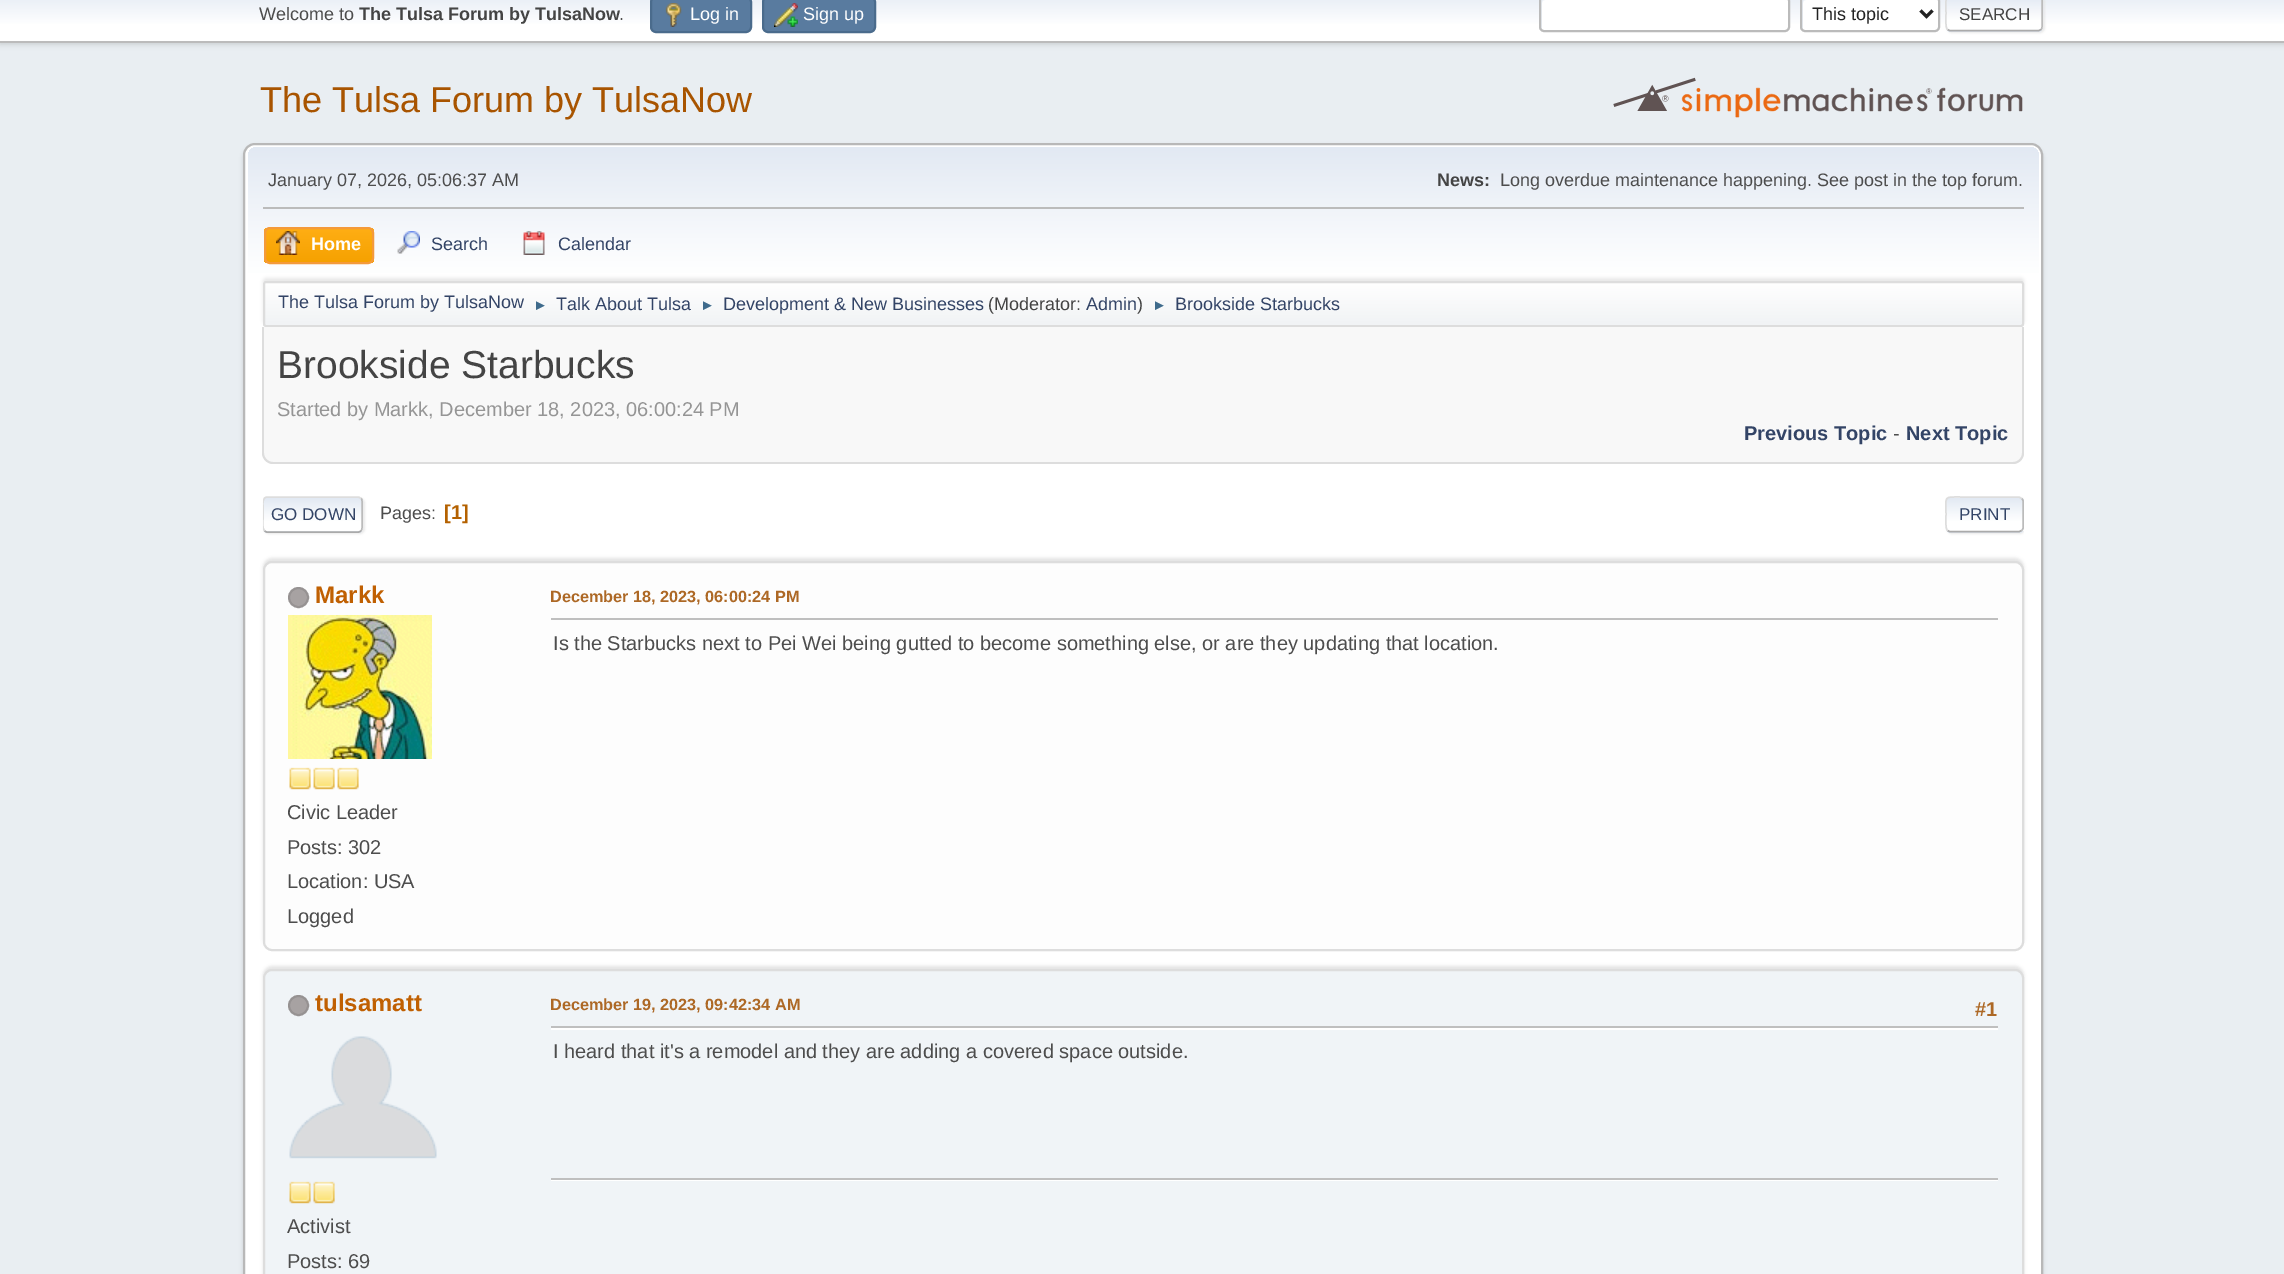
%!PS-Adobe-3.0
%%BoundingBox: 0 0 2284 1274
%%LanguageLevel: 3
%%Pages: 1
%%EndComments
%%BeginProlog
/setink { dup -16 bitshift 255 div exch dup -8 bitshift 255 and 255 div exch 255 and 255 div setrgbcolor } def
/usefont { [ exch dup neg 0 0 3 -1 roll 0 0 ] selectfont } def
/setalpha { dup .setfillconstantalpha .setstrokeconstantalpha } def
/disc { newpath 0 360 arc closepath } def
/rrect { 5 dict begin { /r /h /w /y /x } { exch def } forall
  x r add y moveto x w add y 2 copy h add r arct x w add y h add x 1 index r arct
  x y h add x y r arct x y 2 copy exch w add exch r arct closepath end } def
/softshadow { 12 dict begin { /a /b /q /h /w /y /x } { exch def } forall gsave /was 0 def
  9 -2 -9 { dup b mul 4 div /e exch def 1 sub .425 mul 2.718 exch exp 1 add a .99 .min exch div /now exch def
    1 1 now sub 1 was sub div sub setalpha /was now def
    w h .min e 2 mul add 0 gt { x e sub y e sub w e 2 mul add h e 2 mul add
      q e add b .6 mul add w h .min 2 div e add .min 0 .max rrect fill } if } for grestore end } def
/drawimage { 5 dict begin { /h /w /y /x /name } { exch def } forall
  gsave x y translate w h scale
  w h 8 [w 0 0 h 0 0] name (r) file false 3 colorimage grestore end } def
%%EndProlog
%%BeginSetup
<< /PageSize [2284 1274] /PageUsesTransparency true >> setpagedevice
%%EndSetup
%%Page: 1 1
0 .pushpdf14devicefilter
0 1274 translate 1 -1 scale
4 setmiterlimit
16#E9EEF2 setink
0 0 2284 1274 rectfill
16#000000 setink
0 -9 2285 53 0 3 0.16 softshadow
gsave 0 0 moveto 2284 0 lineto 2284 41 lineto 0 41 lineto closepath clip newpath
<< /ShadingType 2 /ColorSpace /DeviceRGB /Coords [1142 -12 1142 41] /Extend [true true] /Function << /FunctionType 3 /Domain [0 1] /Functions [<< /FunctionType 2 /Domain [0 1] /C0 [0.886 0.914 0.953] /C1 [1 1 1] /N 1 >> << /FunctionType 2 /Domain [0 1] /C0 [1 1 1] /C1 [1 1 1] /N 1 >>] /Bounds [0.7] /Encode [0 1 0 1] >> >> shfill grestore
16#BBBBBB setink
0 41 2284 2 rectfill
/LiberationSans-Regular 18 usefont
16#4D4D4D setink
259 20 moveto (Welcome to) show
/LiberationSans-Bold 18 usefont
16#444444 setink
359 20 moveto (The Tulsa Forum by TulsaNow) show
/LiberationSans-Regular 18 usefont
16#4D4D4D setink
619 20 moveto (.) show
16#597B9F setink
651 -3 100 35 5 rrect gsave fill grestore
16#4A6B8C setink
2 setlinewidth
stroke
(img1.raw) 665 3 17 24 drawimage
16#FFFFFF setink
690 20 moveto (Log in) show
16#597B9F setink
763 -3 112 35 5 rrect gsave fill grestore
16#4A6B8C setink
stroke
(img2.raw) 774 3 24 24 drawimage
16#FFFFFF setink
803 20 moveto (Sign up) show
1539 -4 251 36 5 rrect fill
16#ECF1F8 setink
1545 0 moveto 1788 0 lineto 1788 -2 1787 -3 1785 -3 curveto 1544 -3 lineto 1542 -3 1541 -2 1541 0 curveto 1541 27 lineto 1541 28 1541 29 1542 29 curveto 1542 3 lineto 1542 1 1543 0 1545 0 curveto closepath fill
16#BBBBBB setink
1540 -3 249 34 4 rrect stroke
16#FFFFFF setink
1800 -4 140 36 5 rrect fill
16#ECF1F8 setink
1806 0 moveto 1938 0 lineto 1938 -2 1937 -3 1935 -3 curveto 1805 -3 lineto 1803 -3 1802 -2 1802 0 curveto 1802 27 lineto 1802 28 1802 29 1803 29 curveto 1803 3 lineto 1803 1 1804 0 1806 0 curveto closepath fill
16#BBBBBB setink
1801 -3 138 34 4 rrect stroke
16#222222 setink
3 setlinewidth
1920.5 10.5 moveto 1926.5 16.5 lineto 1932.5 10.5 lineto stroke
1812 20 moveto (This topic) show
16#DDDDDD setink
1947 -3 98 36 5 1 0.57 softshadow
gsave
1946 -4 97 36 5 rrect clip newpath
gsave 1946 0 moveto 2043 0 lineto 2043 30 lineto 1946 30 lineto closepath clip newpath
<< /ShadingType 2 /ColorSpace /DeviceRGB /Coords [1994 -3 1994 30] /Extend [true true] /Function << /FunctionType 3 /Domain [0 1] /Functions [<< /FunctionType 2 /Domain [0 1] /C0 [0.886 0.914 0.953] /C1 [1 1 1] /N 1 >> << /FunctionType 2 /Domain [0 1] /C0 [1 1 1] /C1 [1 1 1] /N 1 >>] /Bounds [0.7] /Encode [0 1 0 1] >> >> shfill grestore
gsave 1946 30 moveto 2043 30 lineto 2043 32 lineto 1946 32 lineto closepath clip newpath
<< /ShadingType 2 /ColorSpace /DeviceRGB /Coords [1994 30 1994 63] /Extend [true true] /Function << /FunctionType 3 /Domain [0 1] /Functions [<< /FunctionType 2 /Domain [0 1] /C0 [0.886 0.914 0.953] /C1 [1 1 1] /N 1 >> << /FunctionType 2 /Domain [0 1] /C0 [1 1 1] /C1 [1 1 1] /N 1 >>] /Bounds [0.7] /Encode [0 1 0 1] >> >> shfill grestore
grestore
16#BBBBBB setink
1.5 setlinewidth
2041 -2.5 moveto 2042 -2 2042 -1 2042 0 curveto 2042 27 lineto 2042 28 2042 29 2041 29.5 curveto stroke
16#AAAAAA setink
2041 29.5 moveto 2039 30.5 lineto 1949.5 30.5 lineto 1947.5 29.5 lineto stroke
16#DDDDDD setink
1947.5 29.5 moveto 1945 27.5 1946 16.5 1946 13.5 curveto 1946 -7 1943 -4 1965 -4 curveto 2038.5 -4 lineto 2041 -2.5 lineto stroke
/LiberationSans-Regular 17 usefont
16#444444 setink
1959 20 moveto (SEARCH) show
/LiberationSans-Regular 36 usefont
16#A85400 setink
260 112 moveto (The Tulsa Forum by TulsaNow) show
(img3.raw) 1613 77 410 41 drawimage
16#000000 setink
243 146 1800 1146 12 2 0.14 softshadow
16#FFFFFF setink
244 144 1798 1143 11 rrect gsave fill grestore
16#B8B8B8 setink
2 setlinewidth
stroke
gsave 257 147 moveto 2030 147 lineto 2035 147 2039 151 2039 156 curveto 2039 330 lineto 248 330 lineto 248 156 lineto 248 151 252 147 257 147 curveto closepath clip newpath
<< /ShadingType 2 /ColorSpace /DeviceRGB /Coords [1143 147 1143 330] /Extend [true true] /Function << /FunctionType 3 /Domain [0 1] /Functions [<< /FunctionType 2 /Domain [0 1] /C0 [0.886 0.914 0.953] /C1 [1 1 1] /N 1 >> << /FunctionType 2 /Domain [0 1] /C0 [1 1 1] /C1 [1 1 1] /N 1 >>] /Bounds [0.7] /Encode [0 1 0 1] >> >> shfill grestore
16#BBBBBB setink
263 207 1761 2 rectfill
/LiberationSans-Regular 18 usefont
16#4D4D4D setink
268 186 moveto (January 07, 2026, 05:06:37 AM) show
/LiberationSans-Bold 18 usefont
16#444444 setink
1437 186 moveto (News:) show
/LiberationSans-Regular 18 usefont
16#4D4D4D setink
1500 186 moveto (Long overdue maintenance happening. See post in the top forum.) show
gsave
264 227 110 37 6 rrect clip newpath
gsave 264 228 moveto 374 228 lineto 374 263 lineto 264 263 lineto closepath clip newpath
<< /ShadingType 2 /ColorSpace /DeviceRGB /Coords [319 228 319 263] /Extend [true true] /Function << /FunctionType 2 /Domain [0 1] /C0 [1 0.682 0.078] /C1 [0.961 0.631 0] /N 1 >> >> shfill grestore
grestore
16#F49A3A setink
265 228 108 35 5 rrect stroke
(img4.raw) 276 231 24 24 drawimage
/LiberationSans-Bold 18 usefont
16#FFFFFF setink
311 250 moveto (Home) show
(img5.raw) 397 231 23 23 drawimage
/LiberationSans-Regular 18 usefont
16#334466 setink
431 250 moveto (Search) show
(img6.raw) 523 231 22 24 drawimage
558 250 moveto (Calendar) show
16#000000 setink
263 278 1761 46 3 1.5 0.08 softshadow
gsave
263 281 1761 46 3 rrect clip newpath
gsave 263 282 moveto 2024 282 lineto 2024 326 lineto 263 326 lineto closepath clip newpath
<< /ShadingType 2 /ColorSpace /DeviceRGB /Coords [1143 282 1143 326] /Extend [true true] /Function << /FunctionType 3 /Domain [0 1] /Functions [<< /FunctionType 2 /Domain [0 1] /C0 [1 1 1] /C1 [0.945 0.953 0.961] /N 1 >> << /FunctionType 2 /Domain [0 1] /C0 [0.945 0.953 0.961] /C1 [0.945 0.953 0.961] /N 1 >>] /Bounds [0.95] /Encode [0 1 0 1] >> >> shfill grestore
grestore
16#DDDDDD setink
264 282 1759 44 2 rrect stroke
16#334466 setink
278 308 moveto (The Tulsa Forum by TulsaNow) show
/LiberationSans-Regular 15 usefont
16#3F6B8C setink
533 310 moveto (►) show
/LiberationSans-Regular 18 usefont
16#334466 setink
556 310 moveto (Talk About Tulsa) show
/LiberationSans-Regular 15 usefont
16#3F6B8C setink
700 310 moveto (►) show
/LiberationSans-Regular 18 usefont
16#334466 setink
723 310 moveto (Development & New Businesses) show
16#444444 setink
988 310 moveto (\(Moderator:) show
16#334466 setink
1086 310 moveto (Admin) show
16#444444 setink
1137 310 moveto (\)) show
/LiberationSans-Regular 15 usefont
16#3F6B8C setink
1152 310 moveto (►) show
/LiberationSans-Regular 18 usefont
16#334466 setink
1175 310 moveto (Brookside Starbucks) show
16#F8F8F8 setink
263 327 moveto 2024 327 lineto 2024 453 lineto 2024 459 2019 464 2013 464 curveto 274 464 lineto 268 464 263 459 263 453 curveto closepath fill
16#DDDDDD setink
262 327 moveto 2024 327 lineto 2024 453 lineto 2024 459 2019 464 2013 464 curveto 273 464 lineto 267 464 262 459 262 453 curveto closepath 264 327 moveto 2022 327 lineto 2022 453 lineto 2022 458 2018 462 2013 462 curveto 273 462 lineto 268 462 264 458 264 453 curveto closepath eofill
/LiberationSans-Regular 39 usefont
16#444444 setink
277 378 moveto (Brookside Starbucks) show
/LiberationSans-Regular 20 usefont
16#959595 setink
277 416 moveto (Started by Markk, December 18, 2023, 06:00:24 PM) show
/LiberationSans-Bold 20 usefont
16#334466 setink
1744 440 moveto (Previous Topic) show
/LiberationSans-Regular 20 usefont
16#4D4D4D setink
1893 440 moveto (-) show
/LiberationSans-Bold 20 usefont
16#334466 setink
1906 440 moveto (Next Topic) show
16#DDDDDD setink
264 498 101 36 5 1 0.57 softshadow
gsave
263 497 100 36 5 rrect clip newpath
gsave 263 498 moveto 363 498 lineto 363 531 lineto 263 531 lineto closepath clip newpath
<< /ShadingType 2 /ColorSpace /DeviceRGB /Coords [313 498 313 531] /Extend [true true] /Function << /FunctionType 3 /Domain [0 1] /Functions [<< /FunctionType 2 /Domain [0 1] /C0 [0.886 0.914 0.953] /C1 [1 1 1] /N 1 >> << /FunctionType 2 /Domain [0 1] /C0 [1 1 1] /C1 [1 1 1] /N 1 >>] /Bounds [0.7] /Encode [0 1 0 1] >> >> shfill grestore
gsave 263 531 moveto 363 531 lineto 363 533 lineto 263 533 lineto closepath clip newpath
<< /ShadingType 2 /ColorSpace /DeviceRGB /Coords [313 531 313 564] /Extend [true true] /Function << /FunctionType 3 /Domain [0 1] /Functions [<< /FunctionType 2 /Domain [0 1] /C0 [0.886 0.914 0.953] /C1 [1 1 1] /N 1 >> << /FunctionType 2 /Domain [0 1] /C0 [1 1 1] /C1 [1 1 1] /N 1 >>] /Bounds [0.7] /Encode [0 1 0 1] >> >> shfill grestore
grestore
16#BBBBBB setink
1.5 setlinewidth
361 498.5 moveto 362 499 362 500 362 501 curveto 362 528 lineto 362 529 362 530 361 530.5 curveto stroke
16#AAAAAA setink
361 530.5 moveto 360.5 531.5 359.5 532 358.5 532 curveto 267 532 lineto 266 532 265 531.5 264.5 530.5 curveto stroke
gsave
263 486 1761 57 rectclip
16#DDDDDD setink
264.5 530.5 moveto 262 528 263 522 263 519 curveto 263 505.5 lineto 263 502.5 262.5 497.5 267 497 curveto 358.5 497 lineto 361 498.5 lineto stroke
grestore
/LiberationSans-Regular 17 usefont
16#334466 setink
271 520 moveto (GO DOWN) show
/LiberationSans-Regular 18 usefont
16#4D4D4D setink
380 519 moveto (Pages:) show
/LiberationSans-Bold 20 usefont
16#B46100 setink
444 519 moveto ([1]) show
gsave
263 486 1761 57 rectclip
16#DDDDDD setink
1947 498 78 36 5 1 0.57 softshadow
grestore
gsave
1946 497 78 36 5 rrect clip newpath
gsave 1946 498 moveto 2024 498 lineto 2024 531 lineto 1946 531 lineto closepath clip newpath
<< /ShadingType 2 /ColorSpace /DeviceRGB /Coords [1985 498 1985 531] /Extend [true true] /Function << /FunctionType 3 /Domain [0 1] /Functions [<< /FunctionType 2 /Domain [0 1] /C0 [0.886 0.914 0.953] /C1 [1 1 1] /N 1 >> << /FunctionType 2 /Domain [0 1] /C0 [1 1 1] /C1 [1 1 1] /N 1 >>] /Bounds [0.7] /Encode [0 1 0 1] >> >> shfill grestore
gsave 1946 531 moveto 2024 531 lineto 2024 533 lineto 1946 533 lineto closepath clip newpath
<< /ShadingType 2 /ColorSpace /DeviceRGB /Coords [1985 531 1985 564] /Extend [true true] /Function << /FunctionType 3 /Domain [0 1] /Functions [<< /FunctionType 2 /Domain [0 1] /C0 [0.886 0.914 0.953] /C1 [1 1 1] /N 1 >> << /FunctionType 2 /Domain [0 1] /C0 [1 1 1] /C1 [1 1 1] /N 1 >>] /Bounds [0.7] /Encode [0 1 0 1] >> >> shfill grestore
grestore
16#BBBBBB setink
2021.5 498.5 moveto 2022.5 499 2023 500 2023 501 curveto 2023 528 lineto 2023 529 2022.5 530 2021.5 530.5 curveto stroke
16#AAAAAA setink
2021.5 530.5 moveto 2019.5 531.5 lineto 1949.5 531.5 lineto 1947.5 530.5 lineto stroke
16#DDDDDD setink
1947.5 530.5 moveto 1945 528.5 1946 517.5 1946 514.5 curveto 1946 495.5 1943 497 1961.5 497 curveto 2019 497 lineto 2021.5 498.5 lineto stroke
/LiberationSans-Regular 17 usefont
16#334466 setink
1959 520 moveto (PRINT) show
16#000000 setink
263 558 1761 390 9 1.5 0.1 softshadow
16#FDFDFD setink
264 562 1759 388 8 rrect gsave fill grestore
16#DDDDDD setink
2 setlinewidth
stroke
16#A7A2A2 setink
298.5 597.5 9.5 disc gsave fill grestore
16#969292 setink
stroke
/LiberationSans-Bold 24 usefont
16#C06002 setink
315 603 moveto (Markk) show
(img7.raw) 288 615 144 144 drawimage
(img8.raw) 289 767 22 23 drawimage
(img8.raw) 313 767 22 23 drawimage
(img8.raw) 337 767 22 23 drawimage
/LiberationSans-Regular 20 usefont
16#4D4D4D setink
[
    [(Civic Leader) 287 819]
    [(Posts: 302) 287 854]
    [(Location: USA) 287 888]
    [(Logged) 287 923]
] { aload pop moveto show } forall
/LiberationSans-Bold 16.25 usefont
16#AD6825 setink
550 602 moveto (December 18, 2023, 06:00:24 PM) show
16#BFBFBF setink
551 618 1447 2 rectfill
/LiberationSans-Regular 20 usefont
16#4D4D4D setink
553 650 moveto (Is the Starbucks next to Pei Wei being gutted to become something else, or are they updating that location.) show
16#000000 setink
263 966 1761 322 9 1.5 0.1 softshadow
16#F0F4F7 setink
264 970 1759 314 8 rrect gsave fill grestore
16#DDDDDD setink
stroke
16#A7A2A2 setink
298.5 1005.5 9.5 disc gsave fill grestore
16#969292 setink
stroke
/LiberationSans-Bold 24 usefont
16#C06002 setink
315 1011 moveto (tulsamatt) show
(img9.raw) 289 1036 148 123 drawimage
(img10.raw) 289 1181 22 23 drawimage
(img10.raw) 313 1181 22 23 drawimage
/LiberationSans-Regular 20 usefont
16#4D4D4D setink
287 1233 moveto (Activist) show
287 1268 moveto (Posts: 69) show
/LiberationSans-Bold 16.25 usefont
16#AD6825 setink
550 1010 moveto (December 19, 2023, 09:42:34 AM) show
/LiberationSans-Bold 20 usefont
1975 1016 moveto (#1) show
16#FFFFFF setink
551 1028 1447 2 rectfill
16#BFBFBF setink
551 1026 1447 2 rectfill
/LiberationSans-Regular 20 usefont
16#4D4D4D setink
553 1058 moveto (I heard that it's a remodel and they are adding a covered space outside.) show
16#FFFFFF setink
551 1180 1447 1 rectfill
16#BFBFBF setink
551 1178 1447 2 rectfill
.poppdf14devicefilter showpage
%%EOF
